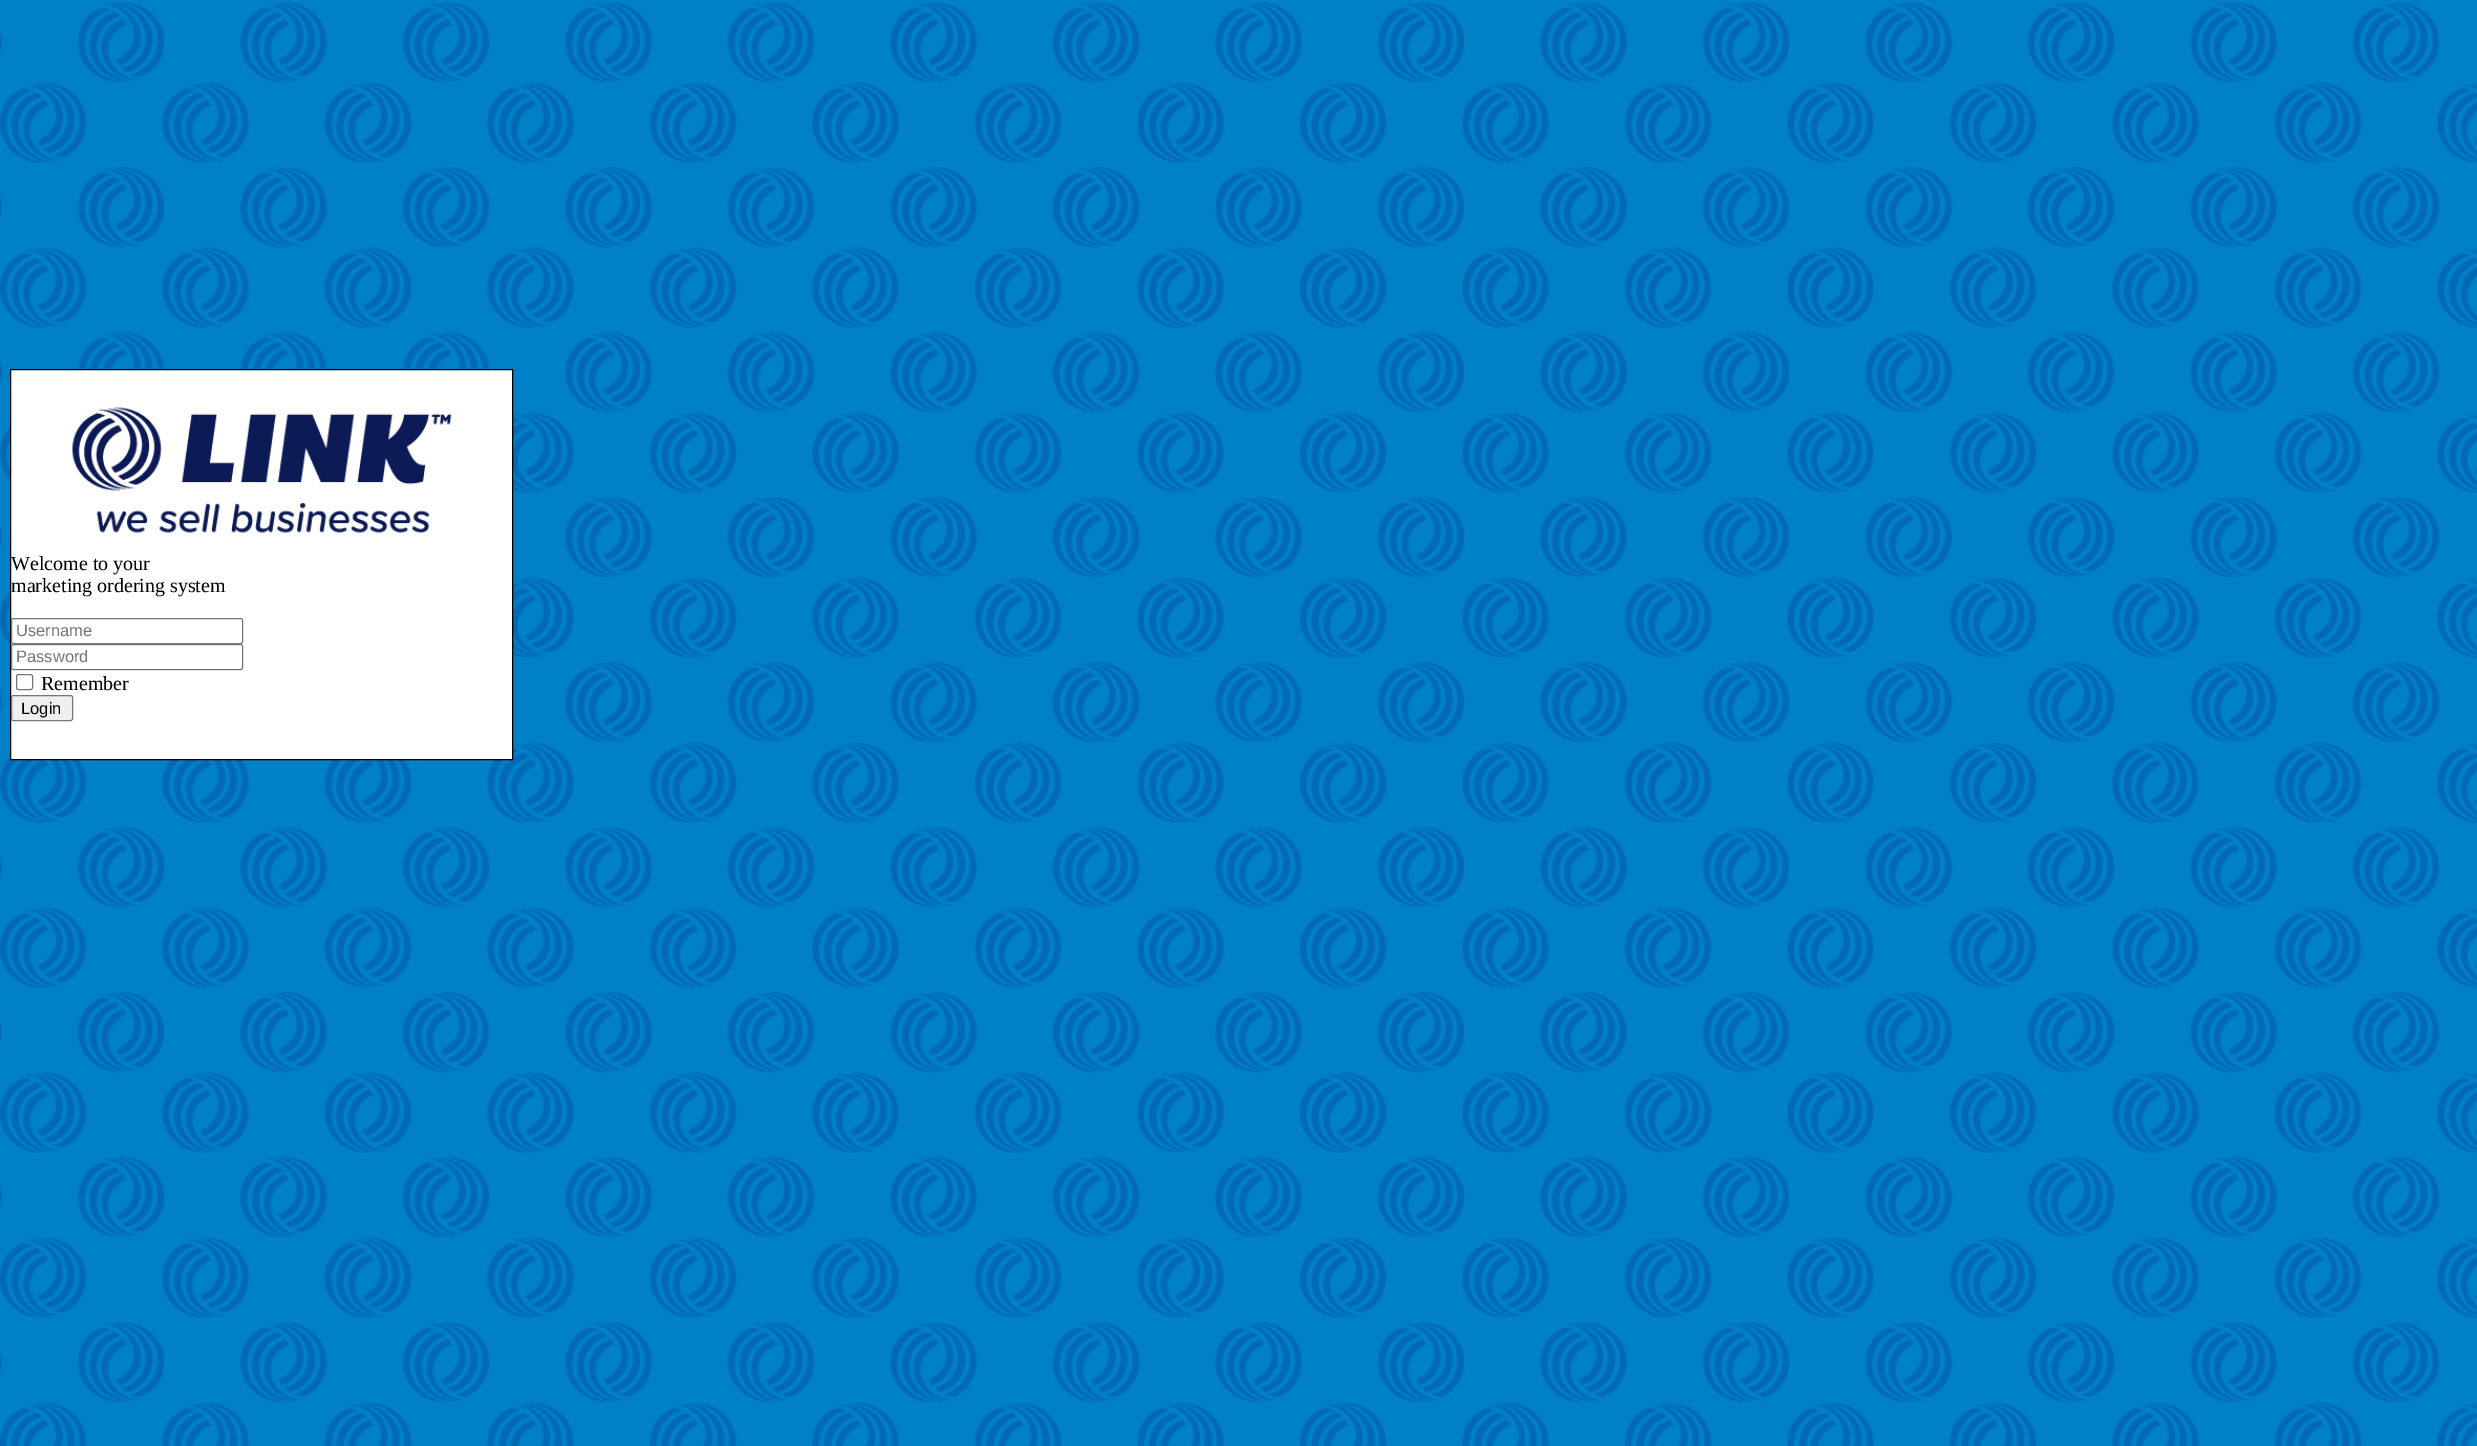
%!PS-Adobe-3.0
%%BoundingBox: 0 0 2477 1446
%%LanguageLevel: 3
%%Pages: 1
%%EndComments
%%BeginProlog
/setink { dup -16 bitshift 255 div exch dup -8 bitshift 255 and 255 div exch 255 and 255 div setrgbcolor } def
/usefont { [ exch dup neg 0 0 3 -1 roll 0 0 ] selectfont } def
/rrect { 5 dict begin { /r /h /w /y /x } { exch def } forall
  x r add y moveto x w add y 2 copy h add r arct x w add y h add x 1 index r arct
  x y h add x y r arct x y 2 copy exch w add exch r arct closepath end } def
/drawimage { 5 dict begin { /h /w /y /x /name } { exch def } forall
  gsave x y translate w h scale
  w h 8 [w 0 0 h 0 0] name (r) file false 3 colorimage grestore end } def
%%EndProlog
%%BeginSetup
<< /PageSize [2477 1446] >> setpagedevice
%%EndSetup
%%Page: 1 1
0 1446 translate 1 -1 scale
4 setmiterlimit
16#0080C6 setink
0 0 2477 1446 rectfill
(img1.raw) 0 1 2477 1445 drawimage
16#FFFFFF setink
10.5 369.5 moveto 512.5 369.5 lineto 512.5 759.5 lineto 10.5 759.5 lineto closepath gsave fill grestore
16#000000 setink
stroke
(img2.raw) 72 407 380 126 drawimage
/LiberationSerif-Regular 20 usefont
11 570 moveto (Welcome to your) show
11 592 moveto (marketing ordering system) show
16#767676 setink
11.5 618.5 231 25 2 rrect stroke
/LiberationSans-Regular 16.5 usefont
16#757575 setink
16 636 moveto (Username) show
16#767676 setink
11.5 644.5 231 25 2 rrect stroke
16#757575 setink
16 662 moveto (Password) show
16#767676 setink
16.5 674.5 16 15 2 rrect stroke
/LiberationSerif-Regular 20 usefont
16#000000 setink
41 690 moveto (Remember) show
16#EFEFEF setink
11.5 695.5 61 25 2 rrect gsave fill grestore
16#767676 setink
stroke
/LiberationSans-Regular 16.5 usefont
16#000000 setink
21 714 moveto (Login) show
showpage
%%EOF
